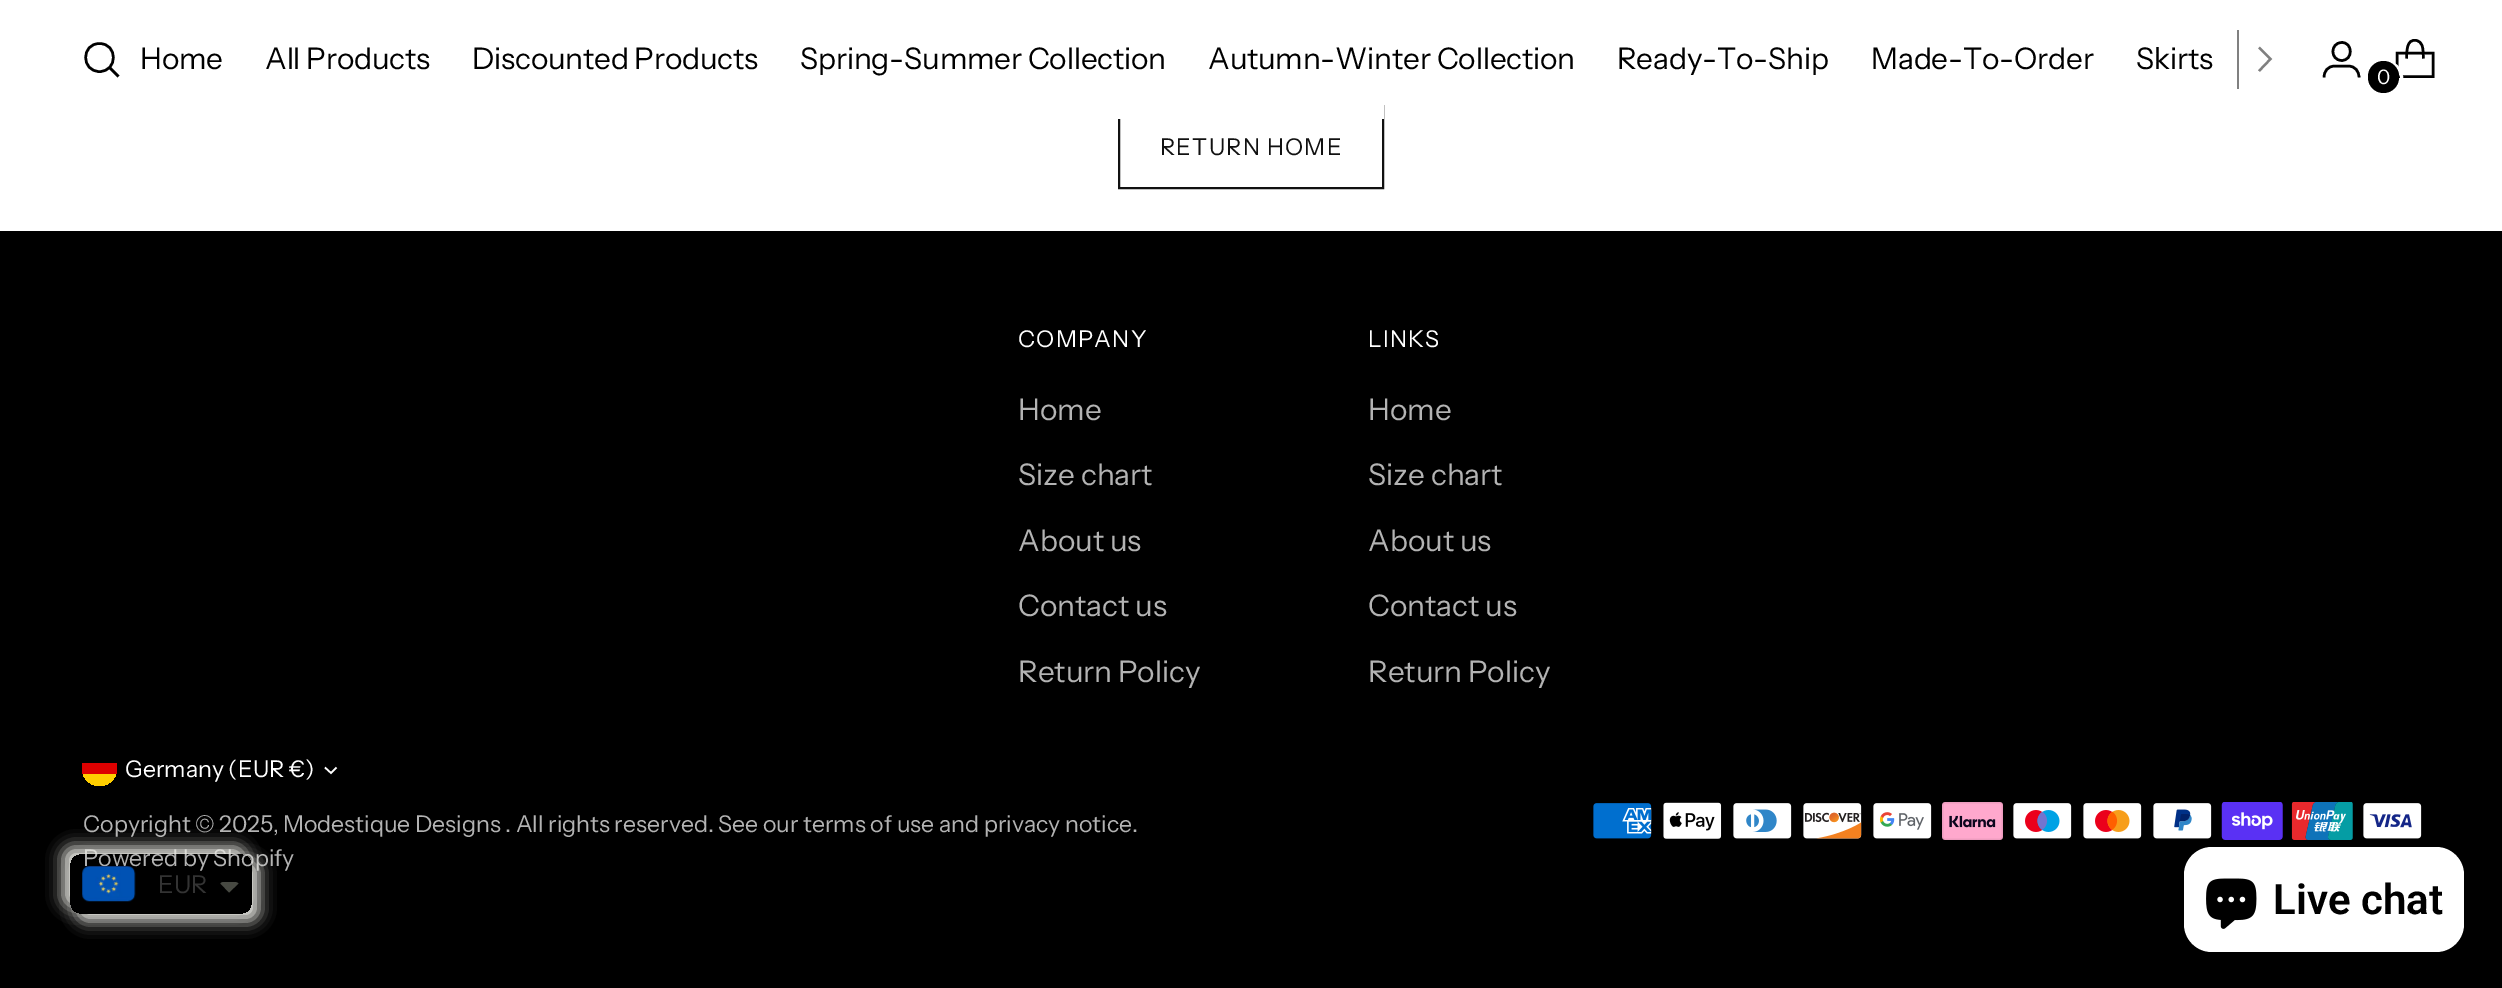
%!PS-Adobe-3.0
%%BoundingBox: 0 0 2502 988
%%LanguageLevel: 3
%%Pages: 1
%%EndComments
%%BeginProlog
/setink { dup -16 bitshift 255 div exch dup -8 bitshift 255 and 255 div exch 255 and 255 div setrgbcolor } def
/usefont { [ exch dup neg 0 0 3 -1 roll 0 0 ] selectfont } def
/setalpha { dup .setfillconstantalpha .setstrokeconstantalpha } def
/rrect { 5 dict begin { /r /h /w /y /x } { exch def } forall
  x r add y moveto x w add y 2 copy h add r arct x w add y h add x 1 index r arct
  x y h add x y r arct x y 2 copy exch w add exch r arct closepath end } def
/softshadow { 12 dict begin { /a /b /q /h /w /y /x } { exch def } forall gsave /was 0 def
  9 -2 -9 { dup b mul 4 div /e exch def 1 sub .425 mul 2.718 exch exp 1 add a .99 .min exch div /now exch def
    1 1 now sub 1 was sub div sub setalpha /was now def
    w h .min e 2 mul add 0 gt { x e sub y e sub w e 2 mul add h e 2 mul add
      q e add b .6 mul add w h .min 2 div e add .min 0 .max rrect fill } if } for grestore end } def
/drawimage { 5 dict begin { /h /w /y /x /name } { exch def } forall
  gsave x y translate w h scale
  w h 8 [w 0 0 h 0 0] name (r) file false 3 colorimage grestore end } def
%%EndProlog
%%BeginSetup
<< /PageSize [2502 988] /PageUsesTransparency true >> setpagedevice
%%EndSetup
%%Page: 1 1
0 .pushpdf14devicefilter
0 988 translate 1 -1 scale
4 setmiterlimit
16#FFFFFF setink
0 0 2502 988 rectfill
16#111111 setink
2 setlinewidth
1119 106 264 82 rectstroke
16#FFFFFF setink
1118 105 266 14 rectfill
16#000000 setink
2.5 setlinewidth
1 setlinecap
99.5 71.5 moveto 118 71.5 118 43.5 99.5 43.5 curveto 81 43.5 81 71.5 99.5 71.5 curveto closepath stroke
0 setlinecap
109.5 67.5 moveto 118.5 76.5 lineto stroke
/InstrumentSans-Regular 29.75 usefont
140 69 moveto -0.15 0 (Home) ashow
265 69 moveto -0.15 0 (All Products) ashow
472 69 moveto -0.15 0 (Discounted Products) ashow
800 69 moveto -0.15 0 (Spring-Summer Collection) ashow
1208 69 moveto -0.15 0 (Autumn-Winter Collection) ashow
1617 69 moveto -0.15 0 (Ready-To-Ship) ashow
1871 69 moveto -0.15 0 (Made-To-Order) ashow
2136 69 moveto -0.15 0 (Skirts) ashow
16#808080 setink
2237 30 2 59 rectfill
2.3 setlinewidth
2259 71 moveto 2270.5 59 lineto 2259 47.5 lineto stroke
16#000000 setink
2.5 setlinewidth
2341.5 60.5 moveto 2353.5 60.5 2353 42 2341.5 42.5 curveto 2330 43 2330 60 2341.5 60.5 curveto closepath 2324 77.5 moveto 2324 71.5 2327.5 66 2335 66 curveto 2348 66 lineto 2355.5 66 2359 71.5 2359 77.5 curveto stroke
2 setlinejoin
2423.5 58.5 moveto 2423 54 2423.5 49.5 2422 45.5 curveto 2421 43 2419.5 41 2416.5 40.5 curveto 2406 38.5 2407 52 2406.5 58.5 curveto stroke
0 setlinejoin
2433 76.5 moveto 2433 53 lineto 2397 53 lineto 2397 76.5 lineto closepath stroke
16#FFFFFF setink
3 setlinewidth
2367.5 61.5 34 33 16.5 rrect stroke
16#000000 setink
2368 61 31 32 15.5 rrect fill
/InstrumentSans-Regular 20 usefont
16#FFFFFF setink
2377 84 moveto (0) show
/InstrumentSans-Regular 23.1 usefont
16#111111 setink
1160 155 moveto 1.25 0 (RETURN HOME) ashow
16#000000 setink
0 231 2502 757 rectfill
16#FFFFFF setink
1018 347 moveto 1.25 0 (COMPANY) ashow
/InstrumentSans-Regular 29.75 usefont
16#B3B3B3 setink
[
    [(Home) 1018 420]
    [(Size chart) 1018 485]
    [(About us) 1018 551]
    [(Contact us) 1018 616]
    [(Return Policy) 1018 682]
] { aload pop moveto show } forall
/InstrumentSans-Regular 23.1 usefont
16#FFFFFF setink
1368 347 moveto 1.25 0 (LINKS) ashow
/InstrumentSans-Regular 29.75 usefont
16#B3B3B3 setink
[
    [(Home) 1368 420]
    [(Size chart) 1368 485]
    [(About us) 1368 551]
    [(Contact us) 1368 616]
    [(Return Policy) 1368 682]
] { aload pop moveto show } forall
gsave
82 751 35 35 17.5 rrect clip newpath
16#FFCE00 setink
83 774 33 12 rectfill
16#DD0000 setink
82 763 35 11 rectfill
grestore
/InstrumentSans-Regular 23.1 usefont
16#FFFFFF setink
125 777 moveto (Germany \(EUR €\)) show
1.6 setlinewidth
325 767.5 moveto 331 773 lineto 336.5 767.5 lineto stroke
16#B3B3B3 setink
[
    [(Copyright © 2025,) 83 832]
    [(Modestique Designs) 283 832]
    [(. All rights reserved.) 505 832]
    [(See our terms of use and privacy notice.) 718 832]
    [(Powered by Shopify) 83 866]
] { aload pop moveto show } forall
(img1.raw) 1593 803 59 36 drawimage
(img2.raw) 1663 802 59 37 drawimage
(img3.raw) 1733 803 59 36 drawimage
(img4.raw) 1803 803 59 36 drawimage
(img5.raw) 1873 803 59 36 drawimage
(img6.raw) 1942 802 61 38 drawimage
(img7.raw) 2013 803 59 36 drawimage
(img8.raw) 2083 803 59 36 drawimage
(img9.raw) 2153 803 59 36 drawimage
(img10.raw) 2221 802 62 38 drawimage
(img11.raw) 2291 802 62 38 drawimage
(img12.raw) 2363 803 59 36 drawimage
gsave
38 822 moveto 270 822 lineto 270 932 lineto 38 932 lineto closepath 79 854 moveto 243 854 lineto 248 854 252 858 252 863 curveto 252 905 lineto 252 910 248 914 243 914 curveto 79 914 lineto 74 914 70 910 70 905 curveto 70 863 lineto 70 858 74 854 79 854 curveto closepath eoclip newpath
16#E8E8E2 setink
63 847 182 60 9 8 1 softshadow
grestore
gsave
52 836 moveto 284 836 lineto 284 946 lineto 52 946 lineto closepath 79 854 moveto 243 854 lineto 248 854 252 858 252 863 curveto 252 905 lineto 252 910 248 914 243 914 curveto 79 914 lineto 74 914 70 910 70 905 curveto 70 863 lineto 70 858 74 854 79 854 curveto closepath eoclip newpath
16#E8E8E2 setink
77 861 182 60 9 8 1 softshadow
grestore
(img13.raw) 82 866 54 36 drawimage
/InstrumentSans-Regular 24.5 usefont
16#333333 setink
158 893 moveto (EUR) show
16#474942 setink
224 882 moveto 234.5 882 lineto 236 882 237.5 882.5 238.5 883.5 curveto 229 892.5 lineto 220.5 883.5 lineto 221 882.5 222.5 882 224 882 curveto closepath fill
16#FFFFFF setink
2184 847 280 105 28 rrect fill
(img14.raw) 2206 878 51 51 drawimage
/Roboto-SemiBold 42 usefont
16#000000 setink
2273 914 moveto (Live chat) show
.poppdf14devicefilter showpage
%%EOF
